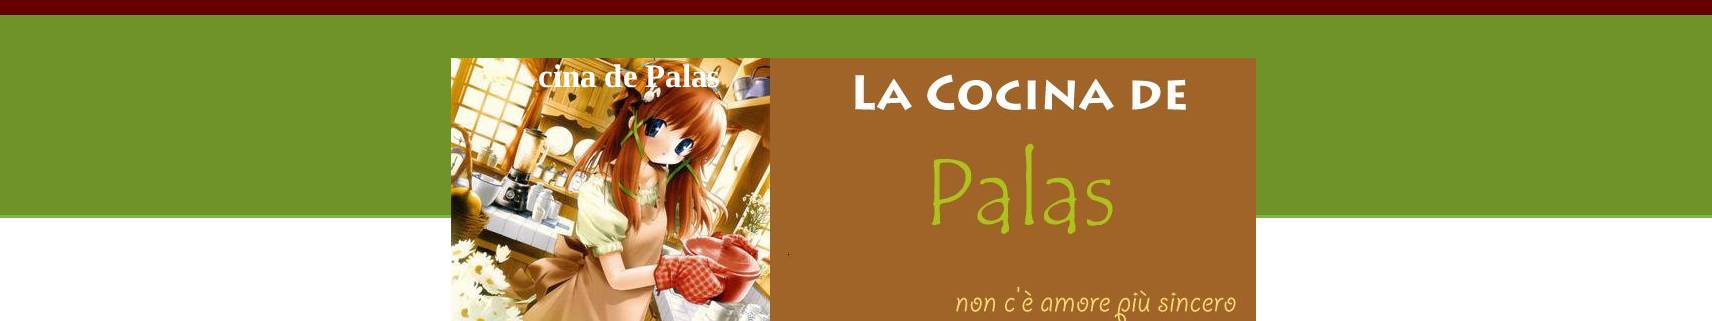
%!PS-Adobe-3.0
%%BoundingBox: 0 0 1712 321
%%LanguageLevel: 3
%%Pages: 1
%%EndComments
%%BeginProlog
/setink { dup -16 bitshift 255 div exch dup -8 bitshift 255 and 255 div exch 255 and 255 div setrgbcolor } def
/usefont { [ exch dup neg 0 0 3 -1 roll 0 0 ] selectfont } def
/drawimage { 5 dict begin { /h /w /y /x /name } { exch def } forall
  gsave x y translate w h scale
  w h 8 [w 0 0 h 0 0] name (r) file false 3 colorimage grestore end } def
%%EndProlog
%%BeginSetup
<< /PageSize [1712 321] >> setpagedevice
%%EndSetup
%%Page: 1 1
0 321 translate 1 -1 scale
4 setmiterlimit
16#FFFFFF setink
0 0 1712 321 rectfill
[
    [0 0 1712 15 16#660000]
    [0 15 1712 200 16#709328]
    [0 215 1712 3 16#78B749]
] { aload pop setink rectfill } forall
(img1.raw) 451 58 805 263 drawimage
/LiberationSerif-Bold 32.75 usefont
16#FFFFFF setink
538 87 moveto (cina de Palas) show
showpage
%%EOF
